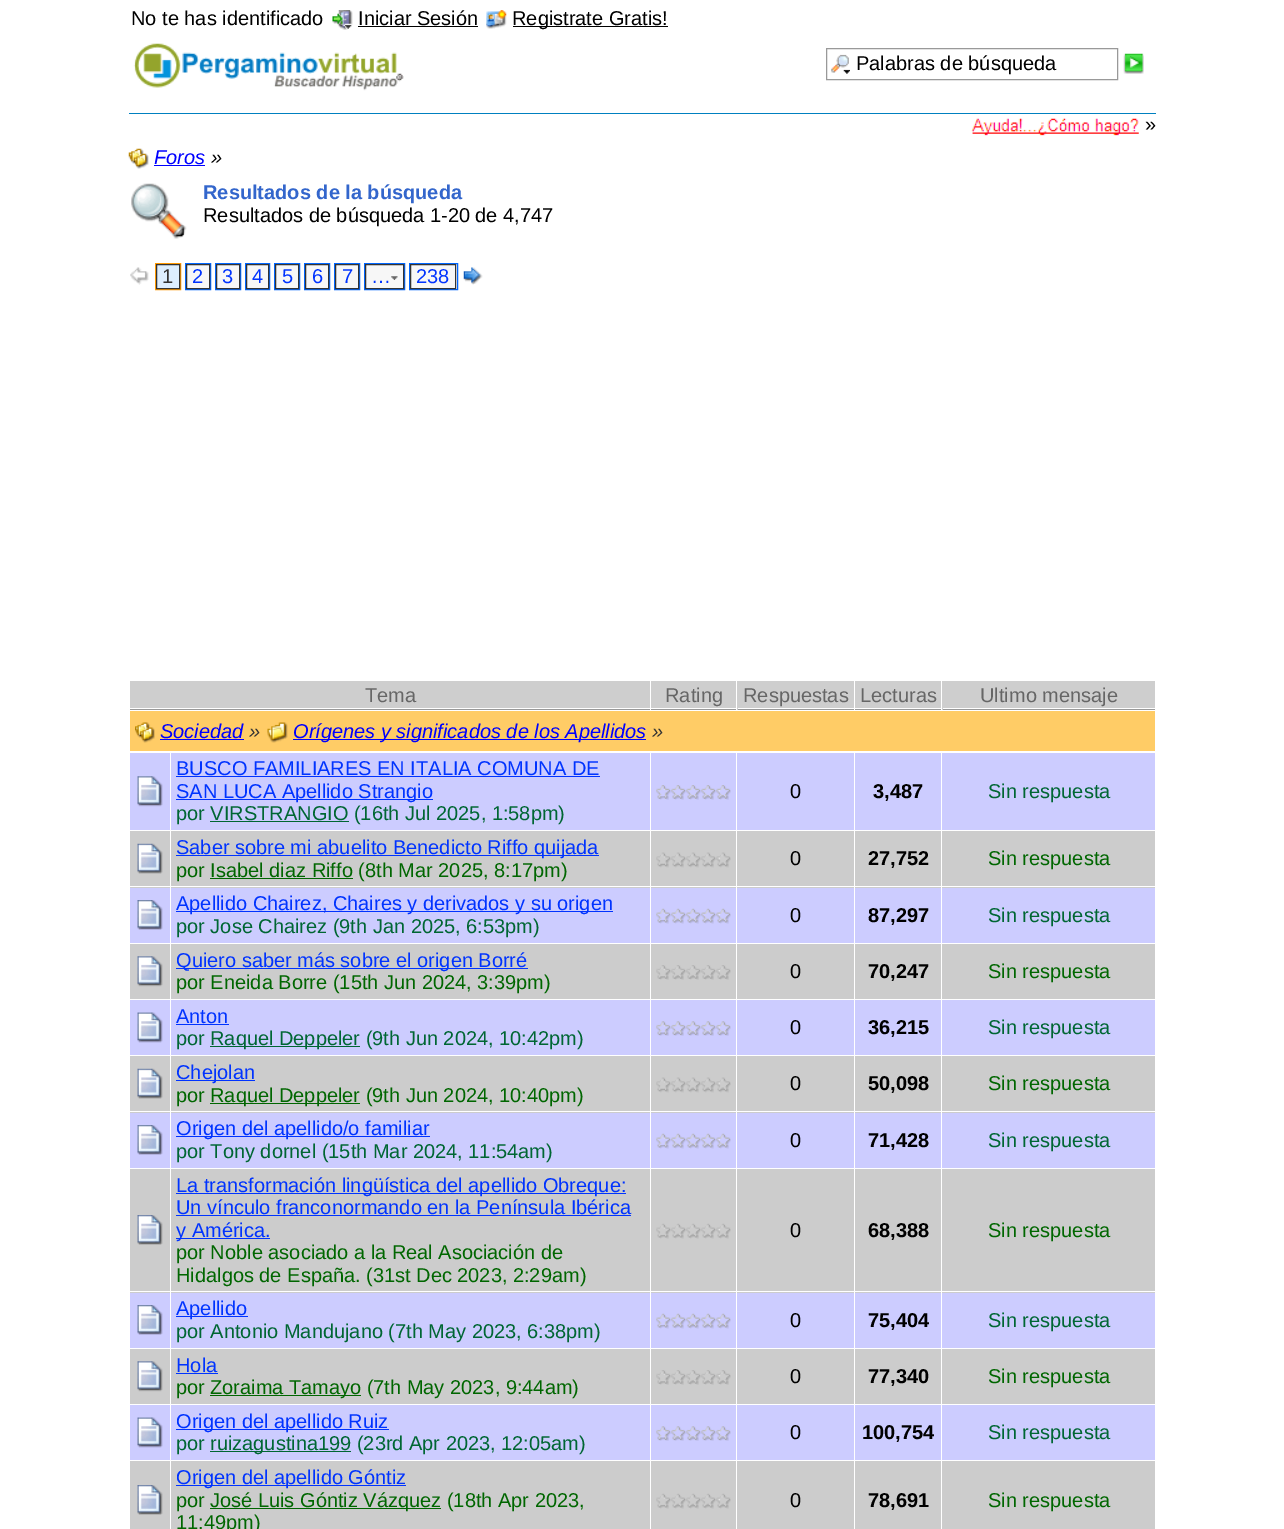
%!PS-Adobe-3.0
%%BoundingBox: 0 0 1284 1529
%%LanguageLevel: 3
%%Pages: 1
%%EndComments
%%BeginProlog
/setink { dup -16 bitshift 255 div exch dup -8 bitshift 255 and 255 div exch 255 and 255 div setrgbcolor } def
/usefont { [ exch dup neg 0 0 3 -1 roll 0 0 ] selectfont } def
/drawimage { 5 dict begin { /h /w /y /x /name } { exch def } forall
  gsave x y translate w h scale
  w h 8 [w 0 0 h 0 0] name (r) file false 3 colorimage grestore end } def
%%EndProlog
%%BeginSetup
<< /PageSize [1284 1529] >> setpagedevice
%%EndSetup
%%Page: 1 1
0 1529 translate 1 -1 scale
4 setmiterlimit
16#FFFFFF setink
0 0 1284 1529 rectfill
/LiberationSans-Regular 20 usefont
16#000000 setink
131 25 moveto (No te has identificado) show
(img1.raw) 332 10 21 20 drawimage
358 25 moveto (Iniciar Sesión) show
358 26 120 1 rectfill
(img2.raw) 486 10 21 19 drawimage
513 26 155 1 rectfill
512 25 moveto (Registrate Gratis!) show
(img3.raw) 133 43 271 48 drawimage
(img4.raw) 831 54 19 20 drawimage
16#999999 setink
826.5 48.5 291 31 rectstroke
16#000000 setink
856 70 moveto (Palabras de búsqueda) show
(img5.raw) 1123 53 21 21 drawimage
16#0080C0 setink
129 113 1027 1 rectfill
(img6.raw) 971 118 168 18 drawimage
16#000000 setink
1145 131 moveto (») show
(img7.raw) 128 148 21 21 drawimage
/LiberationSans-Italic 20 usefont
16#0000FF setink
154 164 moveto (Foros) show
154 165 51 1 rectfill
16#000000 setink
211 164 moveto (») show
(img8.raw) 131 183 56 56 drawimage
/LiberationSans-Bold 20 usefont
16#3366CC setink
203 199 moveto (Resultados de la búsqueda) show
/LiberationSans-Regular 20 usefont
16#000000 setink
203 222 moveto (Resultados de búsqueda 1-20 de 4,747) show
(img9.raw) 130 267 19 18 drawimage
16#FF9900 setink
155.5 263.5 25 26 rectstroke
16#DDEEFF setink
156.5 264.5 moveto 179.5 264.5 lineto 179.5 288.5 lineto 156.5 288.5 lineto closepath gsave fill grestore
16#333333 setink
stroke
162 283 moveto (1) show
16#0066FF setink
185.5 263.5 25 26 rectstroke
16#F7F7F7 setink
186.5 264.5 moveto 209.5 264.5 lineto 209.5 288.5 lineto 186.5 288.5 lineto closepath gsave fill grestore
16#333333 setink
stroke
16#0033FF setink
192 283 moveto (2) show
16#0066FF setink
215.5 263.5 25 26 rectstroke
16#F7F7F7 setink
216.5 264.5 moveto 239.5 264.5 lineto 239.5 288.5 lineto 216.5 288.5 lineto closepath gsave fill grestore
16#333333 setink
stroke
16#0033FF setink
222 283 moveto (3) show
16#0066FF setink
245.5 263.5 24 26 rectstroke
16#F7F7F7 setink
246.5 264.5 moveto 268.5 264.5 lineto 268.5 288.5 lineto 246.5 288.5 lineto closepath gsave fill grestore
16#333333 setink
stroke
16#0033FF setink
252 283 moveto (4) show
16#0066FF setink
274.5 263.5 25 26 rectstroke
16#F7F7F7 setink
275.5 264.5 moveto 298.5 264.5 lineto 298.5 288.5 lineto 275.5 288.5 lineto closepath gsave fill grestore
16#333333 setink
stroke
16#0033FF setink
282 283 moveto (5) show
16#0066FF setink
304.5 263.5 25 26 rectstroke
16#F7F7F7 setink
305.5 264.5 moveto 328.5 264.5 lineto 328.5 288.5 lineto 305.5 288.5 lineto closepath gsave fill grestore
16#333333 setink
stroke
16#0033FF setink
312 283 moveto (6) show
16#0066FF setink
334.5 263.5 25 26 rectstroke
16#F7F7F7 setink
335.5 264.5 moveto 358.5 264.5 lineto 358.5 288.5 lineto 335.5 288.5 lineto closepath gsave fill grestore
16#333333 setink
stroke
16#0033FF setink
342 283 moveto (7) show
16#0066FF setink
364.5 263.5 40 26 rectstroke
16#F7F7F7 setink
365.5 264.5 moveto 403.5 264.5 lineto 403.5 288.5 lineto 365.5 288.5 lineto closepath gsave fill grestore
16#333333 setink
stroke
(img10.raw) 391 276 7 4 drawimage
16#0033FF setink
371 283 moveto (…) show
16#0066FF setink
409.5 263.5 48 26 rectstroke
16#F7F7F7 setink
410.5 264.5 moveto 455.5 264.5 lineto 455.5 288.5 lineto 410.5 288.5 lineto closepath gsave fill grestore
16#333333 setink
stroke
16#0033FF setink
416 283 moveto (238) show
(img11.raw) 463 267 20 18 drawimage
[
    [130 681 1025 29 16#CECECE]
    [650 681 1 30 16#FFFFFF]
    [130 709 520 1 16#999999]
    [130 708 520 1 16#FFFFFF]
] { aload pop setink rectfill } forall
16#666666 setink
365 702 moveto (Tema) show
[
    [736 681 1 30 16#FFFFFF]
    [651 709 85 1 16#999999]
    [651 708 85 1 16#FFFFFF]
] { aload pop setink rectfill } forall
16#666666 setink
665 702 moveto (Rating) show
[
    [854 681 1 30 16#FFFFFF]
    [738 709 116 1 16#999999]
    [738 708 116 1 16#FFFFFF]
] { aload pop setink rectfill } forall
16#666666 setink
743 702 moveto (Respuestas) show
[
    [941 681 1 30 16#FFFFFF]
    [855 709 86 1 16#999999]
    [855 708 86 1 16#FFFFFF]
] { aload pop setink rectfill } forall
16#666666 setink
860 702 moveto (Lecturas) show
16#999999 setink
943 709 212 1 rectfill
16#FFFFFF setink
943 708 212 1 rectfill
16#666666 setink
980 702 moveto (Ultimo mensaje) show
16#FFCC66 setink
130 711 1025 40 rectfill
(img12.raw) 135 722 20 21 drawimage
/LiberationSans-Italic 20 usefont
16#0000FF setink
160 738 moveto (Sociedad) show
160 739 84 1 rectfill
16#333333 setink
249 738 moveto (») show
(img13.raw) 267 722 21 21 drawimage
16#0000FF setink
293 739 353 1 rectfill
293 738 moveto (Orígenes y significados de los Apellidos) show
16#333333 setink
652 738 moveto (») show
16#CCCCFF setink
130 753 1025 77 rectfill
16#FFFFFF setink
170 753 1 78 rectfill
(img14.raw) 137 776 26 31 drawimage
650 753 1 78 rectfill
/LiberationSans-Regular 20 usefont
16#0033FF setink
176 775 moveto (BUSCO FAMILIARES EN ITALIA COMUNA DE) show
176 776 424 1 rectfill
176 799 257 1 rectfill
176 798 moveto (SAN LUCA Apellido Strangio) show
16#006633 setink
176 820 moveto (por VIRSTRANGIO \(16th Jul 2025, 1:58pm\)) show
210 821 139 1 rectfill
16#FFFFFF setink
736 753 1 78 rectfill
(img15.raw) 656 785 75 15 drawimage
854 753 1 78 rectfill
16#000000 setink
790 798 moveto (0) show
16#FFFFFF setink
941 753 1 78 rectfill
/LiberationSans-Bold 20 usefont
16#000000 setink
873 798 moveto (3,487) show
/LiberationSans-Regular 20 usefont
16#006633 setink
988 798 moveto (Sin respuesta) show
[
    [130 831 1025 57 16#CCCCCC]
    [170 831 1 57 16#FFFFFF]
    [130 886 41 1 16#FFFFFF]
] { aload pop setink rectfill } forall
(img16.raw) 137 843 26 31 drawimage
[
    [650 831 1 57 16#FFFFFF]
    [171 886 480 1 16#FFFFFF]
    [176 855 423 1 16#0033FF]
] { aload pop setink rectfill } forall
176 854 moveto (Saber sobre mi abuelito Benedicto Riffo quijada) show
16#006600 setink
176 877 moveto (por Isabel diaz Riffo \(8th Mar 2025, 8:17pm\)) show
[
    [210 878 143 1 16#006600]
    [736 831 1 57 16#FFFFFF]
    [651 886 87 1 16#FFFFFF]
] { aload pop setink rectfill } forall
(img17.raw) 656 852 75 16 drawimage
854 831 1 57 rectfill
738 886 117 1 rectfill
16#000000 setink
790 865 moveto (0) show
16#FFFFFF setink
941 831 1 57 rectfill
855 886 301 1 rectfill
/LiberationSans-Bold 20 usefont
16#000000 setink
868 865 moveto (27,752) show
/LiberationSans-Regular 20 usefont
16#006600 setink
988 865 moveto (Sin respuesta) show
16#CCCCFF setink
130 888 1025 55 rectfill
16#FFFFFF setink
170 888 1 56 rectfill
(img18.raw) 137 900 26 30 drawimage
650 888 1 56 rectfill
16#0033FF setink
176 911 437 1 rectfill
176 910 moveto (Apellido Chairez, Chaires y derivados y su origen) show
16#006633 setink
176 933 moveto (por Jose Chairez \(9th Jan 2025, 6:53pm\)) show
16#FFFFFF setink
736 888 1 56 rectfill
(img19.raw) 656 908 75 16 drawimage
854 888 1 56 rectfill
16#000000 setink
790 922 moveto (0) show
16#FFFFFF setink
941 888 1 56 rectfill
/LiberationSans-Bold 20 usefont
16#000000 setink
868 922 moveto (87,297) show
/LiberationSans-Regular 20 usefont
16#006633 setink
988 922 moveto (Sin respuesta) show
16#CCCCCC setink
130 944 1025 55 rectfill
16#FFFFFF setink
170 944 1 56 rectfill
(img20.raw) 137 956 26 31 drawimage
650 944 1 56 rectfill
16#0033FF setink
176 968 352 1 rectfill
176 967 moveto (Quiero saber más sobre el origen Borré) show
16#006600 setink
176 989 moveto (por Eneida Borre \(15th Jun 2024, 3:39pm\)) show
16#FFFFFF setink
736 944 1 56 rectfill
(img21.raw) 656 965 75 15 drawimage
854 944 1 56 rectfill
16#000000 setink
790 978 moveto (0) show
16#FFFFFF setink
941 944 1 56 rectfill
/LiberationSans-Bold 20 usefont
16#000000 setink
868 978 moveto (70,247) show
/LiberationSans-Regular 20 usefont
16#006600 setink
988 978 moveto (Sin respuesta) show
16#CCCCFF setink
130 1000 1025 55 rectfill
16#FFFFFF setink
170 1000 1 56 rectfill
(img22.raw) 137 1012 26 31 drawimage
650 1000 1 56 rectfill
16#0033FF setink
176 1023 moveto (Anton) show
176 1024 53 1 rectfill
16#006633 setink
176 1045 moveto (por) show
210 1046 150 1 rectfill
210 1045 moveto (Raquel Deppeler \(9th Jun 2024, 10:42pm\)) show
16#FFFFFF setink
736 1000 1 56 rectfill
(img23.raw) 656 1021 75 15 drawimage
854 1000 1 56 rectfill
16#000000 setink
790 1034 moveto (0) show
16#FFFFFF setink
941 1000 1 56 rectfill
/LiberationSans-Bold 20 usefont
16#000000 setink
868 1034 moveto (36,215) show
/LiberationSans-Regular 20 usefont
16#006633 setink
988 1034 moveto (Sin respuesta) show
[
    [130 1056 1025 57 16#CCCCCC]
    [170 1056 1 57 16#FFFFFF]
    [130 1111 41 1 16#FFFFFF]
] { aload pop setink rectfill } forall
(img16.raw) 137 1068 26 31 drawimage
[
    [650 1056 1 57 16#FFFFFF]
    [171 1111 480 1 16#FFFFFF]
    [176 1080 79 1 16#0033FF]
] { aload pop setink rectfill } forall
176 1079 moveto (Chejolan) show
16#006600 setink
176 1102 moveto (por) show
210 1103 150 1 rectfill
210 1102 moveto (Raquel Deppeler \(9th Jun 2024, 10:40pm\)) show
16#FFFFFF setink
736 1056 1 57 rectfill
651 1111 87 1 rectfill
(img17.raw) 656 1077 75 16 drawimage
854 1056 1 57 rectfill
738 1111 117 1 rectfill
16#000000 setink
790 1090 moveto (0) show
16#FFFFFF setink
941 1056 1 57 rectfill
855 1111 301 1 rectfill
/LiberationSans-Bold 20 usefont
16#000000 setink
868 1090 moveto (50,098) show
/LiberationSans-Regular 20 usefont
16#006600 setink
988 1090 moveto (Sin respuesta) show
16#CCCCFF setink
130 1113 1025 55 rectfill
16#FFFFFF setink
170 1113 1 56 rectfill
(img18.raw) 137 1125 26 30 drawimage
650 1113 1 56 rectfill
16#0033FF setink
176 1136 254 1 rectfill
176 1135 moveto (Origen del apellido/o familiar) show
16#006633 setink
176 1158 moveto (por Tony dornel \(15th Mar 2024, 11:54am\)) show
16#FFFFFF setink
736 1113 1 56 rectfill
(img19.raw) 656 1133 75 16 drawimage
854 1113 1 56 rectfill
16#000000 setink
790 1147 moveto (0) show
16#FFFFFF setink
941 1113 1 56 rectfill
/LiberationSans-Bold 20 usefont
16#000000 setink
868 1147 moveto (71,428) show
/LiberationSans-Regular 20 usefont
16#006633 setink
988 1147 moveto (Sin respuesta) show
[
    [130 1169 1025 124 16#CCCCCC]
    [170 1169 1 124 16#FFFFFF]
    [130 1291 41 1 16#FFFFFF]
] { aload pop setink rectfill } forall
(img24.raw) 137 1215 26 30 drawimage
[
    [650 1169 1 124 16#FFFFFF]
    [171 1291 480 1 16#FFFFFF]
    [176 1193 450 1 16#0033FF]
] { aload pop setink rectfill } forall
176 1192 moveto (La transformación lingüística del apellido Obreque:) show
176 1214 moveto (Un vínculo franconormando en la Península Ibérica) show
176 1215 455 1 rectfill
176 1238 94 1 rectfill
176 1237 moveto (y América.) show
16#006600 setink
176 1259 moveto (por Noble asociado a la Real Asociación de) show
176 1282 moveto (Hidalgos de España. \(31st Dec 2023, 2:29am\)) show
16#FFFFFF setink
736 1169 1 124 rectfill
651 1291 87 1 rectfill
(img25.raw) 656 1223 75 16 drawimage
854 1169 1 124 rectfill
738 1291 117 1 rectfill
16#000000 setink
790 1237 moveto (0) show
16#FFFFFF setink
941 1169 1 124 rectfill
855 1291 301 1 rectfill
/LiberationSans-Bold 20 usefont
16#000000 setink
868 1237 moveto (68,388) show
/LiberationSans-Regular 20 usefont
16#006600 setink
988 1237 moveto (Sin respuesta) show
16#CCCCFF setink
130 1293 1025 55 rectfill
16#FFFFFF setink
170 1293 1 56 rectfill
(img18.raw) 137 1305 26 30 drawimage
650 1293 1 56 rectfill
16#0033FF setink
176 1316 72 1 rectfill
176 1315 moveto (Apellido) show
16#006633 setink
176 1338 moveto (por Antonio Mandujano \(7th May 2023, 6:38pm\)) show
16#FFFFFF setink
736 1293 1 56 rectfill
(img19.raw) 656 1313 75 16 drawimage
854 1293 1 56 rectfill
16#000000 setink
790 1327 moveto (0) show
16#FFFFFF setink
941 1293 1 56 rectfill
/LiberationSans-Bold 20 usefont
16#000000 setink
868 1327 moveto (75,404) show
/LiberationSans-Regular 20 usefont
16#006633 setink
988 1327 moveto (Sin respuesta) show
16#CCCCCC setink
130 1349 1025 55 rectfill
16#FFFFFF setink
170 1349 1 56 rectfill
(img20.raw) 137 1361 26 31 drawimage
650 1349 1 56 rectfill
16#0033FF setink
176 1372 moveto (Hola) show
176 1373 42 1 rectfill
16#006600 setink
176 1394 moveto (por) show
210 1395 151 1 rectfill
210 1394 moveto (Zoraima Tamayo \(7th May 2023, 9:44am\)) show
16#FFFFFF setink
736 1349 1 56 rectfill
(img21.raw) 656 1370 75 15 drawimage
854 1349 1 56 rectfill
16#000000 setink
790 1383 moveto (0) show
16#FFFFFF setink
941 1349 1 56 rectfill
/LiberationSans-Bold 20 usefont
16#000000 setink
868 1383 moveto (77,340) show
/LiberationSans-Regular 20 usefont
16#006600 setink
988 1383 moveto (Sin respuesta) show
16#CCCCFF setink
130 1405 1025 55 rectfill
16#FFFFFF setink
170 1405 1 56 rectfill
(img22.raw) 137 1417 26 31 drawimage
650 1405 1 56 rectfill
16#0033FF setink
176 1429 213 1 rectfill
176 1428 moveto (Origen del apellido Ruiz) show
16#006633 setink
176 1450 moveto (por) show
210 1451 141 1 rectfill
210 1450 moveto (ruizagustina199 \(23rd Apr 2023, 12:05am\)) show
16#FFFFFF setink
736 1405 1 56 rectfill
(img26.raw) 656 1426 75 15 drawimage
854 1405 1 56 rectfill
16#000000 setink
790 1439 moveto (0) show
16#FFFFFF setink
941 1405 1 56 rectfill
/LiberationSans-Bold 20 usefont
16#000000 setink
862 1439 moveto (100,754) show
/LiberationSans-Regular 20 usefont
16#006633 setink
988 1439 moveto (Sin respuesta) show
16#CCCCCC setink
130 1461 1025 68 rectfill
16#FFFFFF setink
170 1461 1 68 rectfill
(img24.raw) 137 1485 26 30 drawimage
650 1461 1 68 rectfill
16#0033FF setink
176 1485 230 1 rectfill
176 1484 moveto (Origen del apellido Góntiz) show
16#006600 setink
176 1507 moveto (por) show
210 1508 231 1 rectfill
210 1507 moveto (José Luis Góntiz Vázquez \(18th Apr 2023,) show
176 1529 moveto (11:49pm\)) show
16#FFFFFF setink
736 1461 1 68 rectfill
(img25.raw) 656 1493 75 16 drawimage
854 1461 1 68 rectfill
16#000000 setink
790 1507 moveto (0) show
16#FFFFFF setink
941 1461 1 68 rectfill
/LiberationSans-Bold 20 usefont
16#000000 setink
868 1507 moveto (78,691) show
/LiberationSans-Regular 20 usefont
16#006600 setink
988 1507 moveto (Sin respuesta) show
showpage
%%EOF
